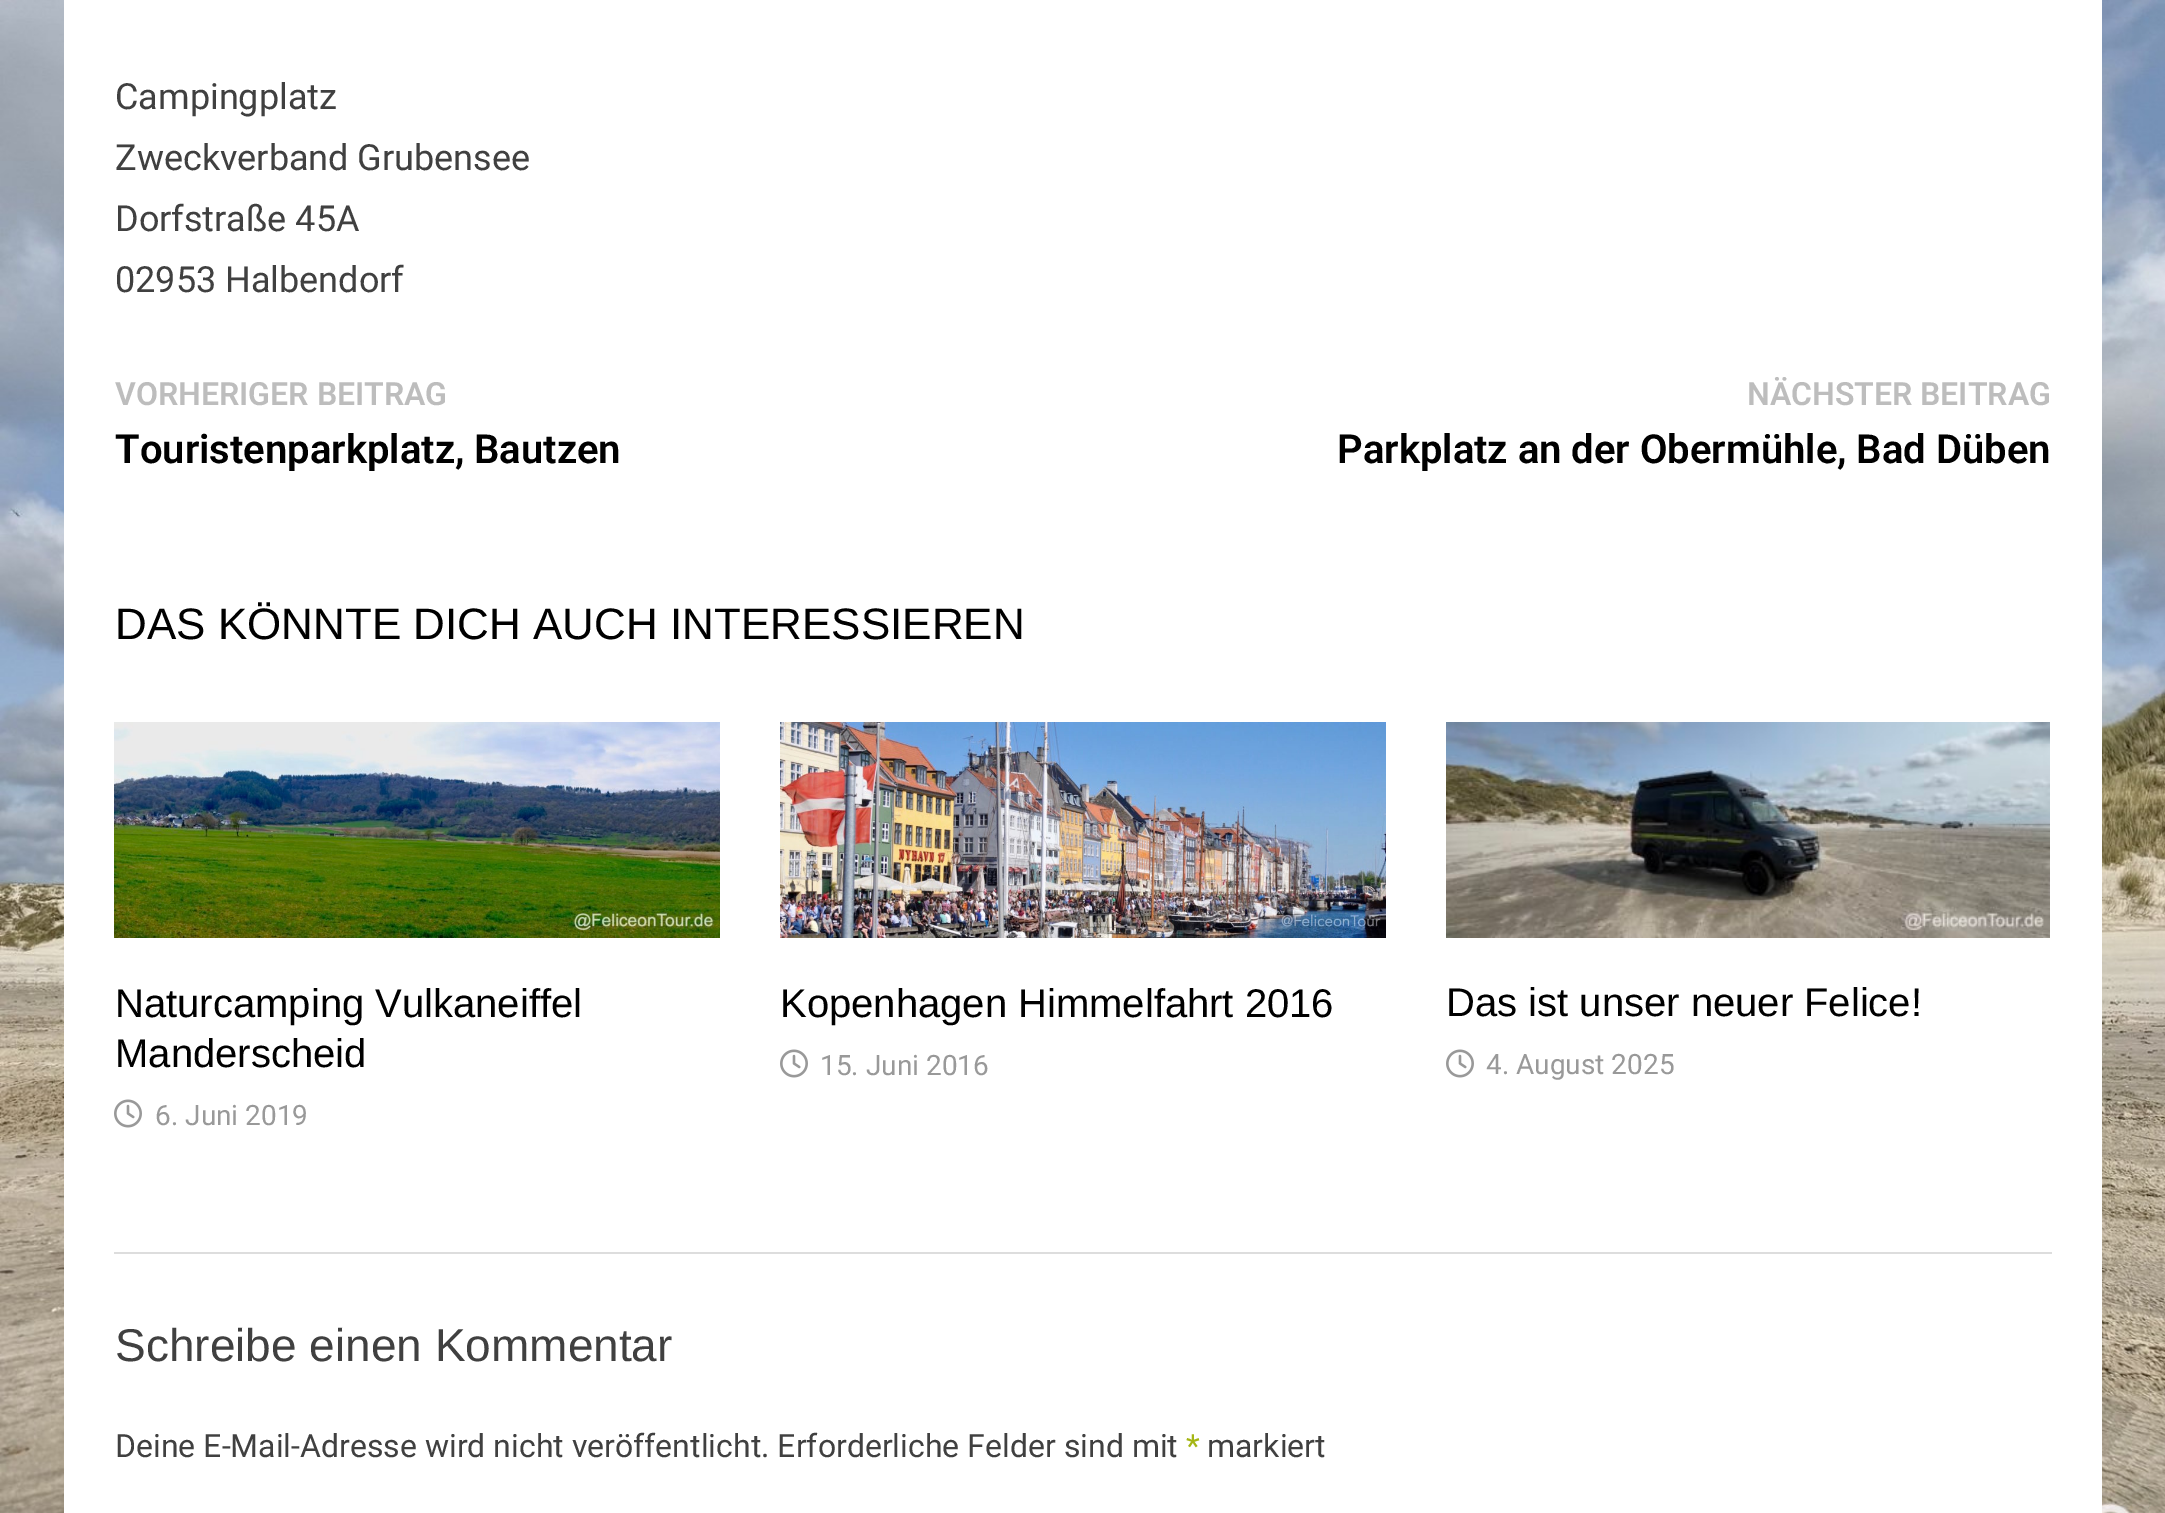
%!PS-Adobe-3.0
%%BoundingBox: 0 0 2165 1513
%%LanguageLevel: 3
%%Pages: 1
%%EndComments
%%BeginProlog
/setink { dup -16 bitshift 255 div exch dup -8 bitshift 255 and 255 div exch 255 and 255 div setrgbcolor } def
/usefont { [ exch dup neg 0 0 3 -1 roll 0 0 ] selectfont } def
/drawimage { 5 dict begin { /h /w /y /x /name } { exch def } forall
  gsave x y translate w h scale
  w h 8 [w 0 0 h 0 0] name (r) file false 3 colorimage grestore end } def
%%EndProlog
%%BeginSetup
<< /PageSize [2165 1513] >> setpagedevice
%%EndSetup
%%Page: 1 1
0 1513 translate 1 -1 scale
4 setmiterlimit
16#FFFFFF setink
0 0 2165 1513 rectfill
(img1.raw) 0 0 2165 1513 drawimage
64 0 2038 1513 rectfill
/Roboto-Regular 36 usefont
16#404040 setink
[
    [(Campingplatz) 115 109]
    [(Zweckverband Grubensee) 115 170]
    [(Dorfstraße 45A) 115 231]
    [(02953 Halbendorf) 115 292]
] { aload pop moveto show } forall
/Roboto-SemiBold 32 usefont
16#BDBDBD setink
115 405 moveto (VORHERIGER BEITRAG) show
/Roboto-SemiBold 40 usefont
16#000000 setink
115 463 moveto (Touristenparkplatz, Bautzen) show
/Roboto-SemiBold 32 usefont
16#BDBDBD setink
1747 405 moveto (NÄCHSTER BEITRAG) show
/Roboto-SemiBold 40 usefont
16#000000 setink
1337 463 moveto (Parkplatz an der Obermühle, Bad Düben) show
/LiberationSans-Regular 44 usefont
115 639 moveto (DAS KÖNNTE DICH AUCH INTERESSIEREN) show
(img2.raw) 114 722 606 216 drawimage
/LiberationSans-Regular 40 usefont
115 1017 moveto (Naturcamping Vulkaneiffel) show
115 1067 moveto (Manderscheid) show
(img3.raw) 114 1099 28 29 drawimage
/Roboto-Regular 28 usefont
16#999999 setink
155 1125 moveto (6. Juni 2019) show
(img4.raw) 780 722 606 216 drawimage
/LiberationSans-Regular 40 usefont
16#000000 setink
780 1017 moveto (Kopenhagen Himmelfahrt 2016) show
(img3.raw) 780 1049 28 29 drawimage
/Roboto-Regular 28 usefont
16#999999 setink
820 1075 moveto (15. Juni 2016) show
(img5.raw) 1446 722 604 216 drawimage
/LiberationSans-Regular 40 usefont
16#000000 setink
1446 1016 moveto (Das ist unser neuer Felice!) show
(img3.raw) 1446 1049 28 29 drawimage
/Roboto-Regular 28 usefont
16#999999 setink
1486 1074 moveto (4. August 2025) show
16#DDDDDD setink
114 1252 1938 2 rectfill
/LiberationSans-Regular 46 usefont
16#404040 setink
115 1361 moveto (Schreibe einen Kommentar) show
/Roboto-Regular 32 usefont
115 1457 moveto (Deine E-Mail-Adresse wird nicht veröffentlicht. Erforderliche Felder sind mit) show
16#A5B614 setink
1186 1457 moveto (*) show
16#404040 setink
1207 1457 moveto (markiert) show
showpage
%%EOF
